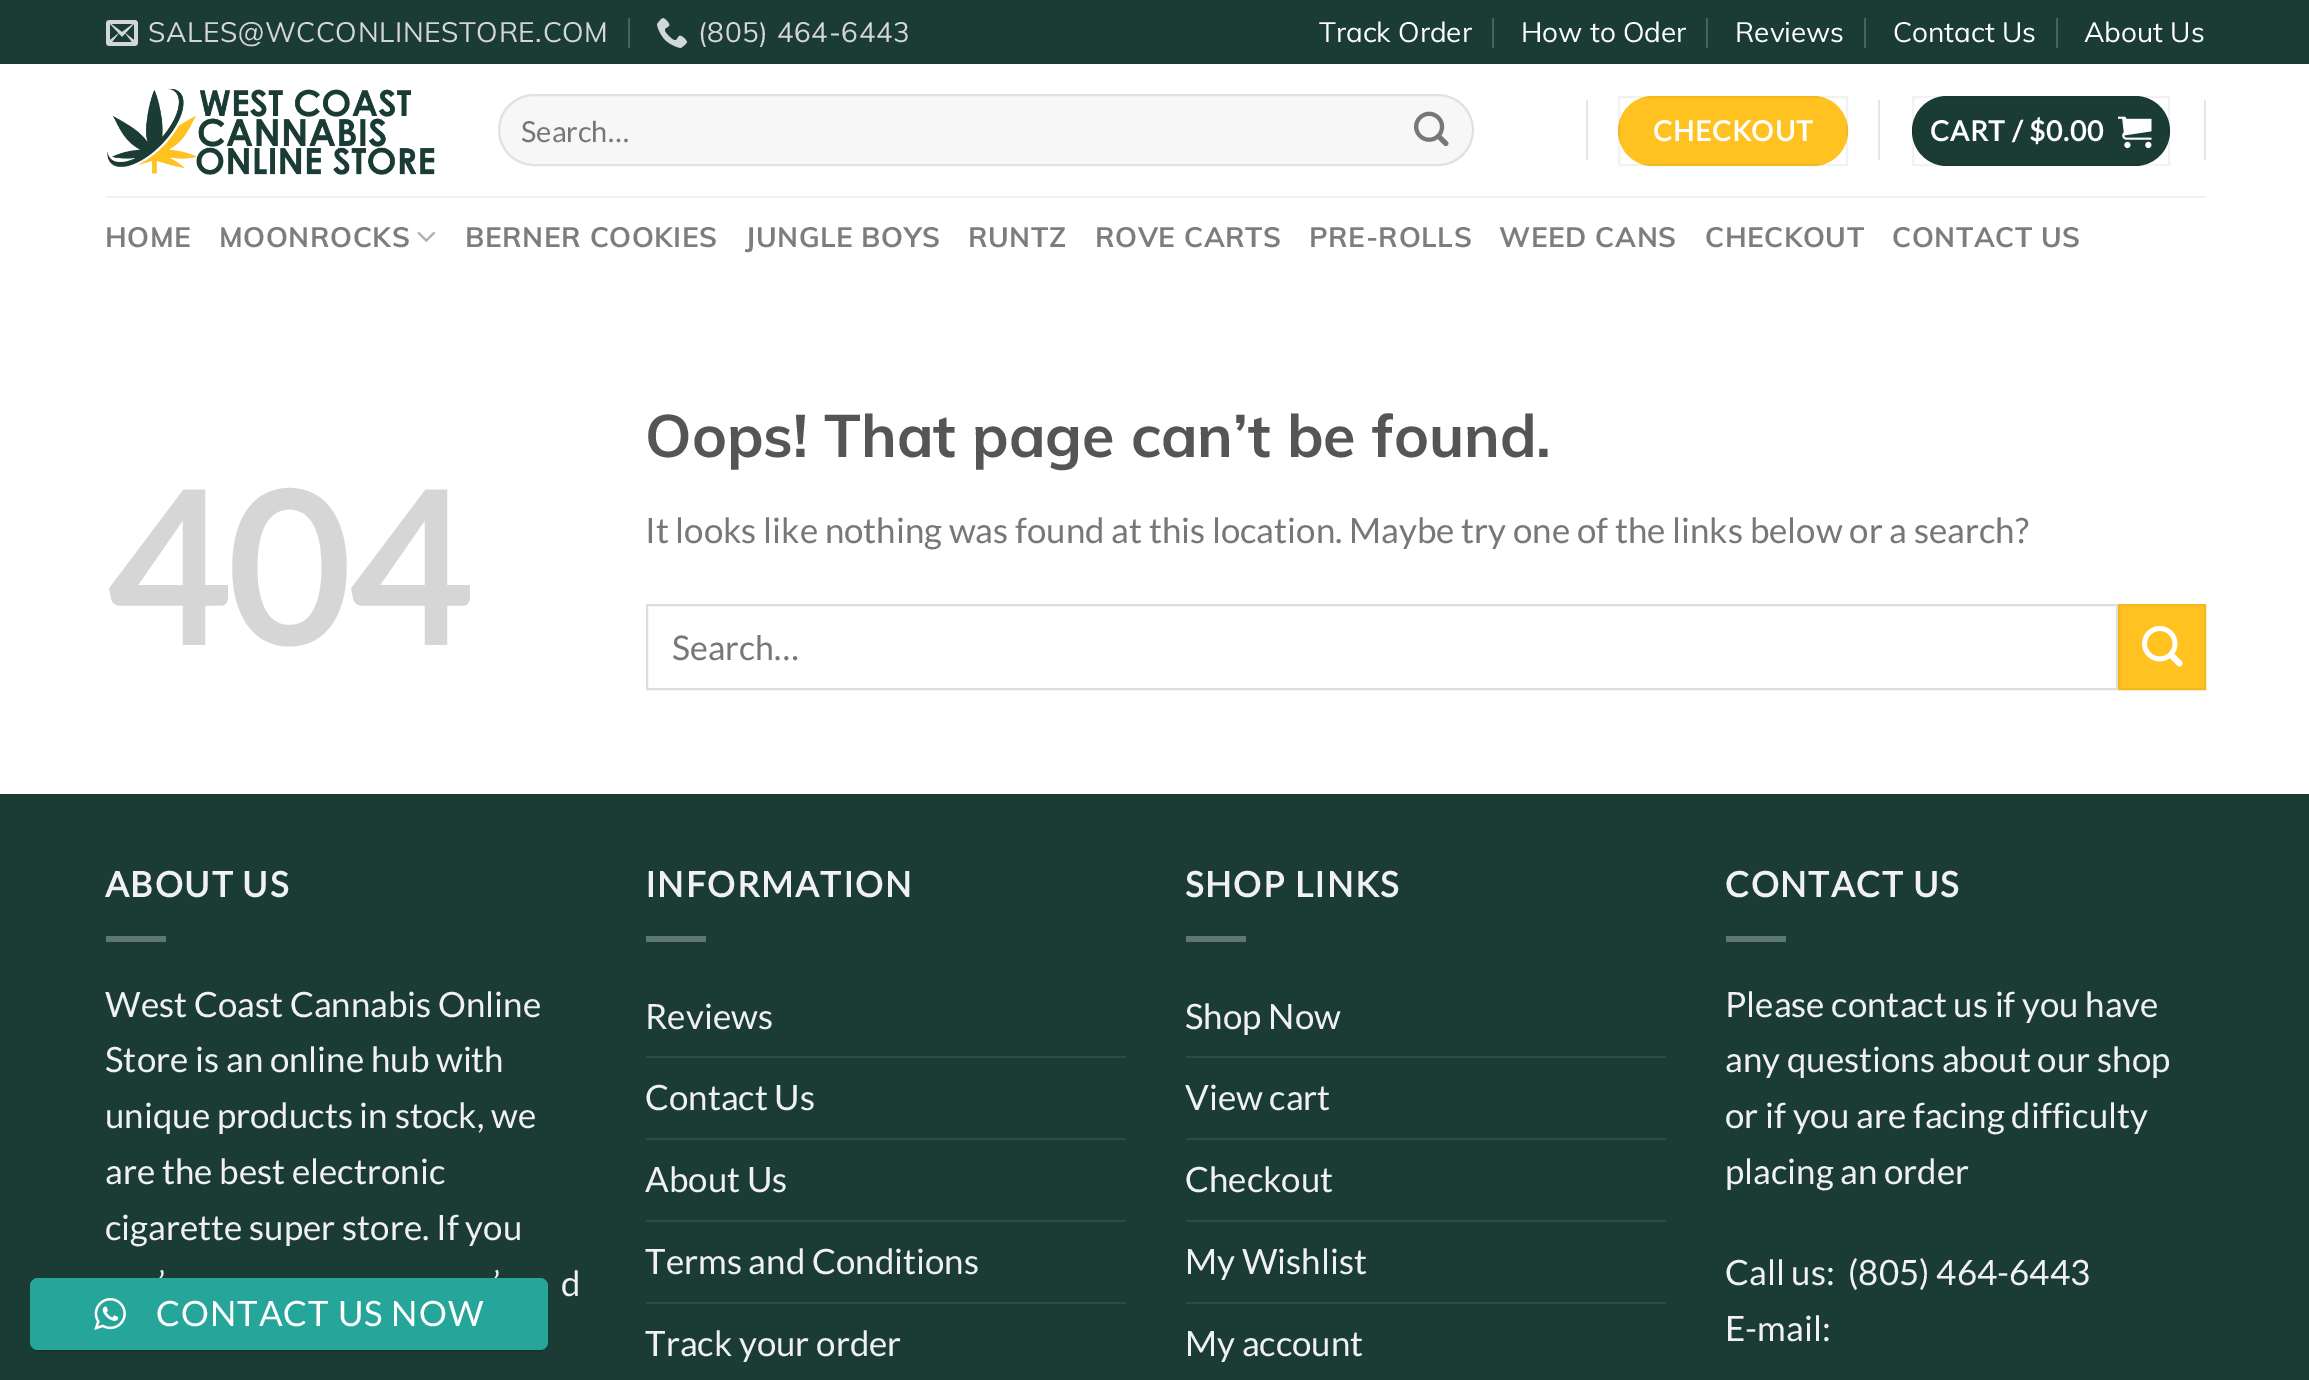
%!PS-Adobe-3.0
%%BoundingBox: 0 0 2309 1380
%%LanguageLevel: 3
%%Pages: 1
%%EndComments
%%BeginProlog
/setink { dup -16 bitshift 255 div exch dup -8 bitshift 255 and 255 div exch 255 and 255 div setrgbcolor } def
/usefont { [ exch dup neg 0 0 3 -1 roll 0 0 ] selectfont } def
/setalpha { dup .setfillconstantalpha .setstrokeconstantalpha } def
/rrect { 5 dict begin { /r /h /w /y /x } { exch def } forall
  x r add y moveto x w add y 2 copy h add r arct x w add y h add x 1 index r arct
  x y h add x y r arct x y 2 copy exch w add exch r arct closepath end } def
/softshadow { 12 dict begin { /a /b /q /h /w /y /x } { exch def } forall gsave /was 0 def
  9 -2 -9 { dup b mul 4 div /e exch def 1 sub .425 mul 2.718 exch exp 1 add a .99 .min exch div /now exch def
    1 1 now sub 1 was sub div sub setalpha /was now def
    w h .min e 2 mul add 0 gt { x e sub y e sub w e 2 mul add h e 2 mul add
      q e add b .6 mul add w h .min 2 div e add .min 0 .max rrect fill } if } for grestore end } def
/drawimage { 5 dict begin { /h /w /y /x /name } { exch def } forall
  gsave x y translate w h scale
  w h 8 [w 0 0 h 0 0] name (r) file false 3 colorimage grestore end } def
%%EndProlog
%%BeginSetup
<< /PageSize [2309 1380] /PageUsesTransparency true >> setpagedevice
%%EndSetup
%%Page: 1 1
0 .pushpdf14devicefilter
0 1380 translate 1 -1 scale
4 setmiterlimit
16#FFFFFF setink
0 0 2309 1380 rectfill
16#1A3C34 setink
0 0 2309 64 rectfill
(img1.raw) 106 20 32 26 drawimage
/Muli-Regular 27.9 usefont
16#D6D6D6 setink
148 42 moveto 0.6 0 (SALES@WCCONLINESTORE.COM) ashow
16#48635D setink
628 18 2 30 rectfill
(img2.raw) 657 18 30 30 drawimage
16#D6D6D6 setink
698 42 moveto 0.6 0 (\(805\) 464-6443) ashow
16#FFFFFF setink
1319 42 moveto (Track Order) show
16#48635D setink
1492 18 2 30 rectfill
16#FFFFFF setink
1521 42 moveto (How to Oder) show
16#48635D setink
1706 18 2 30 rectfill
16#FFFFFF setink
1735 42 moveto (Reviews) show
16#48635D setink
1864 18 2 30 rectfill
16#FFFFFF setink
1893 42 moveto (Contact Us) show
16#48635D setink
2056 18 2 30 rectfill
16#FFFFFF setink
2084 42 moveto (About Us) show
(img3.raw) 107 88 328 87 drawimage
16#F7F7F7 setink
498 94 976 72 36 rrect fill
0.09 setalpha
16#000000 setink
2 setlinewidth
499 95 974 70 35 rrect stroke
/Lato-Regular 29 usefont
1 setalpha
16#777777 setink
521 142 moveto (Search…) show
(img4.raw) 1414 111 35 36 drawimage
16#E6E6E6 setink
1586 100 2 60 rectfill
16#FFC220 setink
1618 96 230 70 35 rrect fill
0.05 setalpha
16#000000 setink
1619 97 228 68 rectstroke
/Lato-Bold 27.9 usefont
1 setalpha
16#FFFFFF setink
1653 141 moveto 0.8 0 (CHECKOUT) ashow
16#E6E6E6 setink
1878 100 2 60 rectfill
16#1A3C34 setink
1912 96 258 70 35 rrect fill
0.05 setalpha
16#000000 setink
1913 97 256 68 rectstroke
1 setalpha
16#FFFFFF setink
1930 141 moveto 0.8 0 (CART / $0.00) ashow
(img5.raw) 2118 116 34 33 drawimage
16#E6E6E6 setink
2204 100 2 60 rectfill
16#F1F1F1 setink
106 196 2100 2 rectfill
/Muli-Bold 27.9 usefont
16#7D7D7D setink
105 247 moveto 0.6 0 (HOME) ashow
219 247 moveto 0.6 0 (MOONROCKS) ashow
(img6.raw) 417 231 19 11 drawimage
465 247 moveto 0.6 0 (BERNER COOKIES) ashow
745 247 moveto 0.6 0 (JUNGLE BOYS) ashow
968 247 moveto 0.6 0 (RUNTZ) ashow
1095 247 moveto 0.6 0 (ROVE CARTS) ashow
1309 247 moveto 0.6 0 (PRE-ROLLS) ashow
1499 247 moveto 0.6 0 (WEED CANS) ashow
1705 247 moveto 0.6 0 (CHECKOUT) ashow
1892 247 moveto 0.6 0 (CONTACT US) ashow
/Lato-Bold 209 usefont
16#D6D6D6 setink
105 645 moveto (404) show
/Muli-Bold 59.25 usefont
16#555555 setink
645 457 moveto (Oops! That page can’t be found.) show
/Lato-Regular 34.9 usefont
16#777777 setink
645 543 moveto (It looks like nothing was found at this location. Maybe try one of the links below or a search?) show
16#DDDDDD setink
647 605 1470 84 rectstroke
/Lato-Regular 34 usefont
16#777777 setink
672 660 moveto (Search…) show
16#FFC220 setink
2119 605 moveto 2205 605 lineto 2205 689 lineto 2119 689 lineto closepath gsave fill grestore
16#F2B81E setink
stroke
(img7.raw) 2142 625 41 42 drawimage
16#1A3C34 setink
0 796 2309 584 rectfill
16#193931 setink
0 794 2309 2 rectfill
/Lato-Bold 34.9 usefont
16#F1F1F1 setink
105 897 moveto 1.75 0 (ABOUT US) ashow
16#5F7771 setink
106 936 60 6 rectfill
/Lato-Regular 34.9 usefont
16#F1F1F1 setink
[
    [(West Coast Cannabis Online) 105 1017]
    [(Store is an online hub with) 105 1072]
    [(unique products in stock, we) 105 1128]
    [(are the best electronic) 105 1184]
    [(cigarette super store. If you) 105 1240]
    [(’) 158 1296]
    [(’) 493 1296]
    [(d) 561 1296]
] { aload pop moveto show } forall
/Lato-Bold 34.9 usefont
645 897 moveto 1.75 0 (INFORMATION) ashow
16#5F7771 setink
646 936 60 6 rectfill
/Lato-Regular 34.9 usefont
16#F1F1F1 setink
645 1029 moveto (Reviews) show
16#2C4C44 setink
646 1056 480 2 rectfill
16#F1F1F1 setink
645 1110 moveto (Contact Us) show
16#2C4C44 setink
646 1138 480 2 rectfill
16#F1F1F1 setink
645 1192 moveto (About Us) show
16#2C4C44 setink
646 1220 480 2 rectfill
16#F1F1F1 setink
645 1274 moveto (Terms and Conditions) show
16#2C4C44 setink
646 1302 480 2 rectfill
16#F1F1F1 setink
645 1356 moveto (Track your order) show
/Lato-Bold 34.9 usefont
1185 897 moveto 1.75 0 (SHOP LINKS) ashow
16#5F7771 setink
1186 936 60 6 rectfill
/Lato-Regular 34.9 usefont
16#F1F1F1 setink
1185 1029 moveto (Shop Now) show
16#2C4C44 setink
1186 1056 480 2 rectfill
16#F1F1F1 setink
1185 1110 moveto (View cart) show
16#2C4C44 setink
1186 1138 480 2 rectfill
16#F1F1F1 setink
1185 1192 moveto (Checkout) show
16#2C4C44 setink
1186 1220 480 2 rectfill
16#F1F1F1 setink
1185 1274 moveto (My Wishlist) show
16#2C4C44 setink
1186 1302 480 2 rectfill
16#F1F1F1 setink
1185 1356 moveto (My account) show
/Lato-Bold 34.9 usefont
1725 897 moveto 1.75 0 (CONTACT US) ashow
16#5F7771 setink
1726 936 60 6 rectfill
/Lato-Regular 34.9 usefont
16#F1F1F1 setink
[
    [(Please contact us if you have) 1725 1017]
    [(any questions about our shop) 1725 1072]
    [(or if you are facing difficulty) 1725 1128]
    [(placing an order) 1725 1184]
    [(Call us:  \(805\) 464-6443) 1725 1285]
    [(E-mail:) 1725 1341]
] { aload pop moveto show } forall
16#000000 setink
34 1288 510 64 4 1 0.2 softshadow
16#26A69A setink
30 1278 518 72 8 rrect fill
(img8.raw) 94 1298 32 32 drawimage
16#FFFFFF setink
156 1326 moveto 1 0 (CONTACT US NOW) ashow
.poppdf14devicefilter showpage
%%EOF
